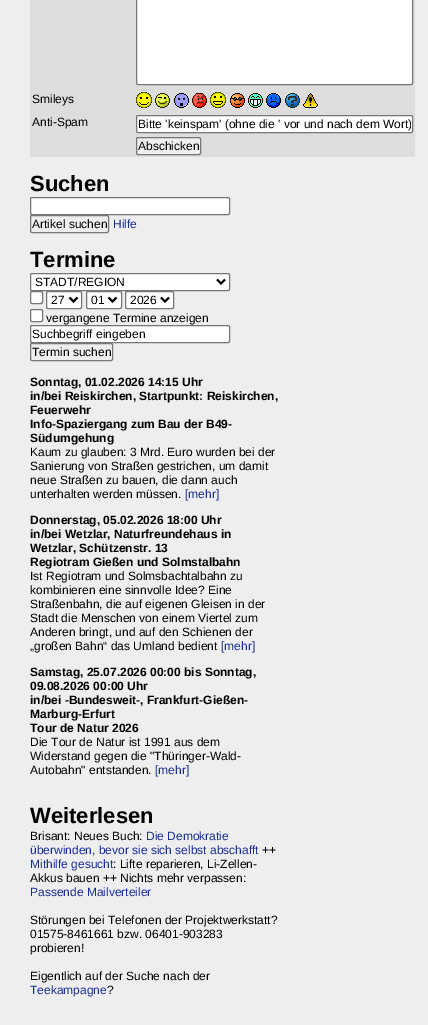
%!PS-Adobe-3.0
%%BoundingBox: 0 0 428 1025
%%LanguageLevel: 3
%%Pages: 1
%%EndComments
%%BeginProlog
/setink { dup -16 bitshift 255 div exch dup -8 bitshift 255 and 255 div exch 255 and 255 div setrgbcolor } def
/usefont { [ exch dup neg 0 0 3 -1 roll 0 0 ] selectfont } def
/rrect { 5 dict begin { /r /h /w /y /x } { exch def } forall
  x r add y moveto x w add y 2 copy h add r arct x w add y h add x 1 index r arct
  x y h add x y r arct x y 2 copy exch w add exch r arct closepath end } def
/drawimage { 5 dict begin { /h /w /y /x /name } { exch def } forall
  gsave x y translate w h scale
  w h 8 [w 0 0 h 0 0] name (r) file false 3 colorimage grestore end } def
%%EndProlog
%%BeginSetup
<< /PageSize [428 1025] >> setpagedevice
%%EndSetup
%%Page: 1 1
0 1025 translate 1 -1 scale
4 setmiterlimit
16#EEEEEE setink
0 0 428 1025 rectfill
16#DDDDDD setink
30 0 385 157 rectfill
16#FFFFFF setink
136.5 -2.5 276 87 1.5 rrect gsave fill grestore
16#767676 setink
stroke
/LiberationSans-Regular 12 usefont
16#000000 setink
32 103 moveto (Smileys) show
(img1.raw) 136 92 16 16 drawimage
(img2.raw) 155 93 15 15 drawimage
(img3.raw) 174 93 15 15 drawimage
(img4.raw) 192 93 15 15 drawimage
(img5.raw) 210 92 16 16 drawimage
(img6.raw) 230 93 15 15 drawimage
(img7.raw) 248 93 15 15 drawimage
(img8.raw) 266 93 15 15 drawimage
(img9.raw) 285 93 15 15 drawimage
(img10.raw) 303 93 15 15 drawimage
32 126 moveto (Anti-Spam) show
16#FFFFFF setink
136.5 115.5 276 17 1.5 rrect gsave fill grestore
16#767676 setink
stroke
gsave
138 117 273 14 rectclip
16#000000 setink
138 128 moveto (Bitte 'keinspam' \(ohne die ' vor und nach dem Wort\)) show
grestore
16#EFEFEF setink
136.5 137.5 64 17 1.5 rrect gsave fill grestore
16#767676 setink
stroke
16#000000 setink
138 150 moveto (Abschicken) show
/LiberationSans-Bold 22 usefont
30 191 moveto (Suchen) show
16#FFFFFF setink
30.5 197.5 199 17 1.5 rrect gsave fill grestore
16#767676 setink
stroke
30.5 215.5 78 17 1.5 rrect stroke
/LiberationSans-Regular 12 usefont
16#000000 setink
32 228 moveto (Artikel suchen) show
16#172E97 setink
113 228 moveto (Hilfe) show
/LiberationSans-Bold 22 usefont
16#000000 setink
30 267 moveto (Termine) show
16#FFFFFF setink
30.5 273.5 199 17 1.5 rrect gsave fill grestore
16#767676 setink
stroke
16#000000 setink
2 setlinewidth
217 279.5 moveto 221 283.5 lineto 225 279.5 lineto stroke
/LiberationSans-Regular 12 usefont
35 286 moveto (STADT/REGION) show
16#FFFFFF setink
30.5 291.5 12 12 1.5 rrect gsave fill grestore
16#767676 setink
1 setlinewidth
stroke
16#FFFFFF setink
46.5 291.5 35 17 1.5 rrect gsave fill grestore
16#767676 setink
stroke
16#000000 setink
2 setlinewidth
69.5 297.5 moveto 73.5 301.5 lineto 77.5 297.5 lineto stroke
51 304 moveto (27) show
16#FFFFFF setink
86.5 291.5 35 17 1.5 rrect gsave fill grestore
16#767676 setink
1 setlinewidth
stroke
16#000000 setink
2 setlinewidth
108.5 297.5 moveto 112.5 301.5 lineto 116.5 297.5 lineto stroke
91 304 moveto (01) show
16#FFFFFF setink
125.5 291.5 48 17 1.5 rrect gsave fill grestore
16#767676 setink
1 setlinewidth
stroke
16#000000 setink
2 setlinewidth
161 297.5 moveto 165 301.5 lineto 169 297.5 lineto stroke
130 304 moveto (2026) show
16#FFFFFF setink
30.5 309.5 12 12 1.5 rrect gsave fill grestore
16#767676 setink
1 setlinewidth
stroke
16#000000 setink
46 322 moveto (vergangene Termine anzeigen) show
16#FFFFFF setink
30.5 325.5 199 17 1.5 rrect gsave fill grestore
16#767676 setink
stroke
16#000000 setink
32 338 moveto (Suchbegriff eingeben) show
16#767676 setink
30.5 343.5 82 17 1.5 rrect stroke
16#000000 setink
32 356 moveto (Termin suchen) show
/LiberationSans-Bold 12 usefont
[
    [(Sonntag, 01.02.2026 14:15 Uhr) 30 386]
    [(in/bei Reiskirchen, Startpunkt: Reiskirchen,) 30 400]
    [(Feuerwehr) 30 414]
    [(Info-Spaziergang zum Bau der B49-) 30 428]
    [(Südumgehung) 30 442]
] { aload pop moveto show } forall
/LiberationSans-Regular 12 usefont
[
    [(Kaum zu glauben: 3 Mrd. Euro wurden bei der) 30 456]
    [(Sanierung von Straßen gestrichen, um damit) 30 470]
    [(neue Straßen zu bauen, die dann auch) 30 484]
    [(unterhalten werden müssen.) 30 498]
] { aload pop moveto show } forall
16#172E97 setink
185 498 moveto ([mehr]) show
/LiberationSans-Bold 12 usefont
16#000000 setink
[
    [(Donnerstag, 05.02.2026 18:00 Uhr) 30 524]
    [(in/bei Wetzlar, Naturfreundehaus in) 30 538]
    [(Wetzlar, Schützenstr. 13) 30 552]
    [(Regiotram Gießen und Solmstalbahn) 30 566]
] { aload pop moveto show } forall
/LiberationSans-Regular 12 usefont
[
    [(Ist Regiotram und Solmsbachtalbahn zu) 30 580]
    [(kombinieren eine sinnvolle Idee? Eine) 30 594]
    [(Straßenbahn, die auf eigenen Gleisen in der) 30 608]
    [(Stadt die Menschen von einem Viertel zum) 30 622]
    [(Anderen bringt, und auf den Schienen der) 30 636]
    [(„großen Bahn“ das Umland bedient) 30 650]
] { aload pop moveto show } forall
16#172E97 setink
221 650 moveto ([mehr]) show
/LiberationSans-Bold 12 usefont
16#000000 setink
[
    [(Samstag, 25.07.2026 00:00 bis Sonntag,) 30 676]
    [(09.08.2026 00:00 Uhr) 30 690]
    [(in/bei -Bundesweit-, Frankfurt-Gießen-) 30 704]
    [(Marburg-Erfurt) 30 718]
    [(Tour de Natur 2026) 30 732]
] { aload pop moveto show } forall
/LiberationSans-Regular 12 usefont
[
    [(Die Tour de Natur ist 1991 aus dem) 30 746]
    [(Widerstand gegen die "Thüringer-Wald-) 30 760]
    [(Autobahn" entstanden.) 30 774]
] { aload pop moveto show } forall
16#172E97 setink
155 774 moveto ([mehr]) show
/LiberationSans-Bold 22 usefont
16#000000 setink
30 823 moveto (Weiterlesen) show
/LiberationSans-Regular 12 usefont
30 840 moveto (Brisant: Neues Buch:) show
16#172E97 setink
146 840 moveto (Die Demokratie) show
30 854 moveto (überwinden, bevor sie sich selbst abschafft) show
16#000000 setink
262 854 moveto (++) show
16#172E97 setink
30 868 moveto (Mithilfe gesucht) show
16#000000 setink
113 868 moveto (: Lifte reparieren, Li-Zellen-) show
30 882 moveto (Akkus bauen ++ Nichts mehr verpassen:) show
16#172E97 setink
30 896 moveto (Passende Mailverteiler) show
16#000000 setink
[
    [(Störungen bei Telefonen der Projektwerkstatt?) 30 924]
    [(01575-8461661 bzw. 06401-903283) 30 938]
    [(probieren!) 30 952]
    [(Eigentlich auf der Suche nach der) 30 980]
] { aload pop moveto show } forall
16#172E97 setink
30 994 moveto (Teekampagne) show
16#000000 setink
107 994 moveto (?) show
showpage
%%EOF
